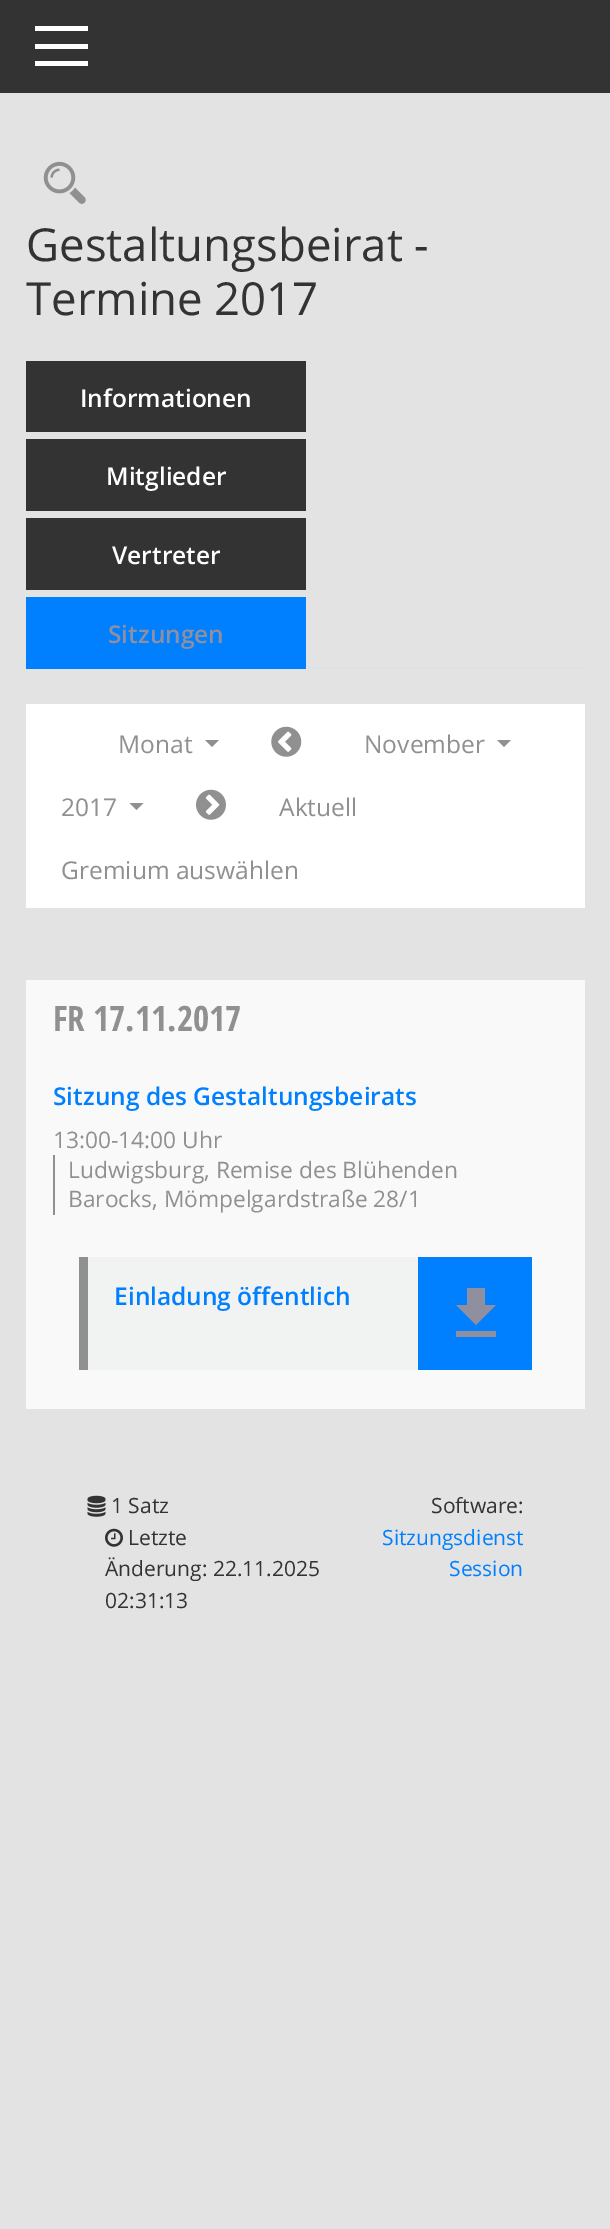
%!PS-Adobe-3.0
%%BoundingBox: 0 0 610 2229
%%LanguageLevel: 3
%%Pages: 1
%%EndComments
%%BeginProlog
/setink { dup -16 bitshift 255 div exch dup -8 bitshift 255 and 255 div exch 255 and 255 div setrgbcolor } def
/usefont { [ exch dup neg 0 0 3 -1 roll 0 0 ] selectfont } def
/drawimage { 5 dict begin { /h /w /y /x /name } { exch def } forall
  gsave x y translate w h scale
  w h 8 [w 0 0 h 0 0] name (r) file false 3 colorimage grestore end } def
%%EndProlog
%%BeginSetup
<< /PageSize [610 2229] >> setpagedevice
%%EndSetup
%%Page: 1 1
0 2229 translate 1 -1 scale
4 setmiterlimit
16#E3E3E3 setink
0 0 610 2229 rectfill
[
    [0 0 610 93 16#333333]
    [35 26 53 5 16#FFFFFF]
    [35 44 53 5 16#FFFFFF]
    [35 61 53 5 16#FFFFFF]
] { aload pop setink rectfill } forall
(img1.raw) 43 161 43 43 drawimage
/OpenSans-Regular 45.5 usefont
16#333333 setink
26 261 moveto (Gestaltungsbeirat -) show
26 315 moveto (Termine 2017) show
16#DEE2E6 setink
306 667 279 2 rectfill
16#333333 setink
26 361 280 71 rectfill
/OpenSans-SemiBold 24.5 usefont
16#FFFFFF setink
80 407 moveto (Informationen) show
16#333333 setink
26 439 280 72 rectfill
16#FFFFFF setink
106 485 moveto (Mitglieder) show
16#333333 setink
26 518 280 72 rectfill
16#FFFFFF setink
112 564 moveto (Vertreter) show
16#0080FF setink
26 597 280 72 rectfill
16#8F8FA0 setink
108 643 moveto (Sitzungen) show
16#FFFFFF setink
26 704 559 204 rectfill
/OpenSans-Regular 24.5 usefont
16#909090 setink
118 753 moveto (Monat) show
205 740 moveto 219 740 lineto 212 747 lineto closepath fill
(img2.raw) 271 726 31 31 drawimage
364 753 moveto (November) show
497 740 moveto 511 740 lineto 504 747 lineto closepath fill
61 816 moveto (2017) show
129.5 803 moveto 143.5 803 lineto 136.5 810 lineto closepath fill
(img3.raw) 196 789 30 31 drawimage
279 816 moveto (Aktuell) show
61 879 moveto (Gremium auswählen) show
16#F9F9F9 setink
26 980 559 429 rectfill
/OpenSansCondensed-Bold 35 usefont
16#909090 setink
53 1031 moveto (FR) show
93 1031 moveto (17.11.2017) show
/OpenSans-SemiBold 24.5 usefont
16#0080FF setink
53 1105 moveto (Sitzung des Gestaltungsbeirats) show
/OpenSans-Regular 22.75 usefont
16#909090 setink
53 1148 moveto (13:00-14:00 Uhr) show
53 1155 2 60 rectfill
68 1178 moveto (Ludwigsburg, Remise des Blühenden) show
68 1207 moveto (Barocks, Mömpelgardstraße 28/1) show
16#F0F3F2 setink
88 1257 330 113 rectfill
16#909090 setink
79 1257 9 113 rectfill
/OpenSans-SemiBold 24.5 usefont
16#0080FF setink
114 1305 moveto (Einladung öffentlich) show
418 1257 114 113 rectfill
16#8F8FA0 setink
496 1305 moveto 485 1305 lineto 485 1288 lineto 467 1288 lineto 467 1305 lineto 456 1305 lineto 476 1325 lineto closepath 456 1331 moveto 456 1337 lineto 496 1337 lineto 496 1331 lineto closepath fill
(img4.raw) 87 1495 19 22 drawimage
/OpenSans-Regular 21 usefont
16#333333 setink
111 1513 moveto (1 Satz) show
(img5.raw) 105 1528 18 19 drawimage
[
    [(Letzte) 128 1545]
    [(Änderung: 22.11.2025) 105 1576]
    [(02:31:13) 105 1608]
    [(Software:) 431 1513]
] { aload pop moveto show } forall
16#0080FF setink
382 1545 moveto (Sitzungsdienst) show
449 1576 moveto (Session) show
showpage
%%EOF
